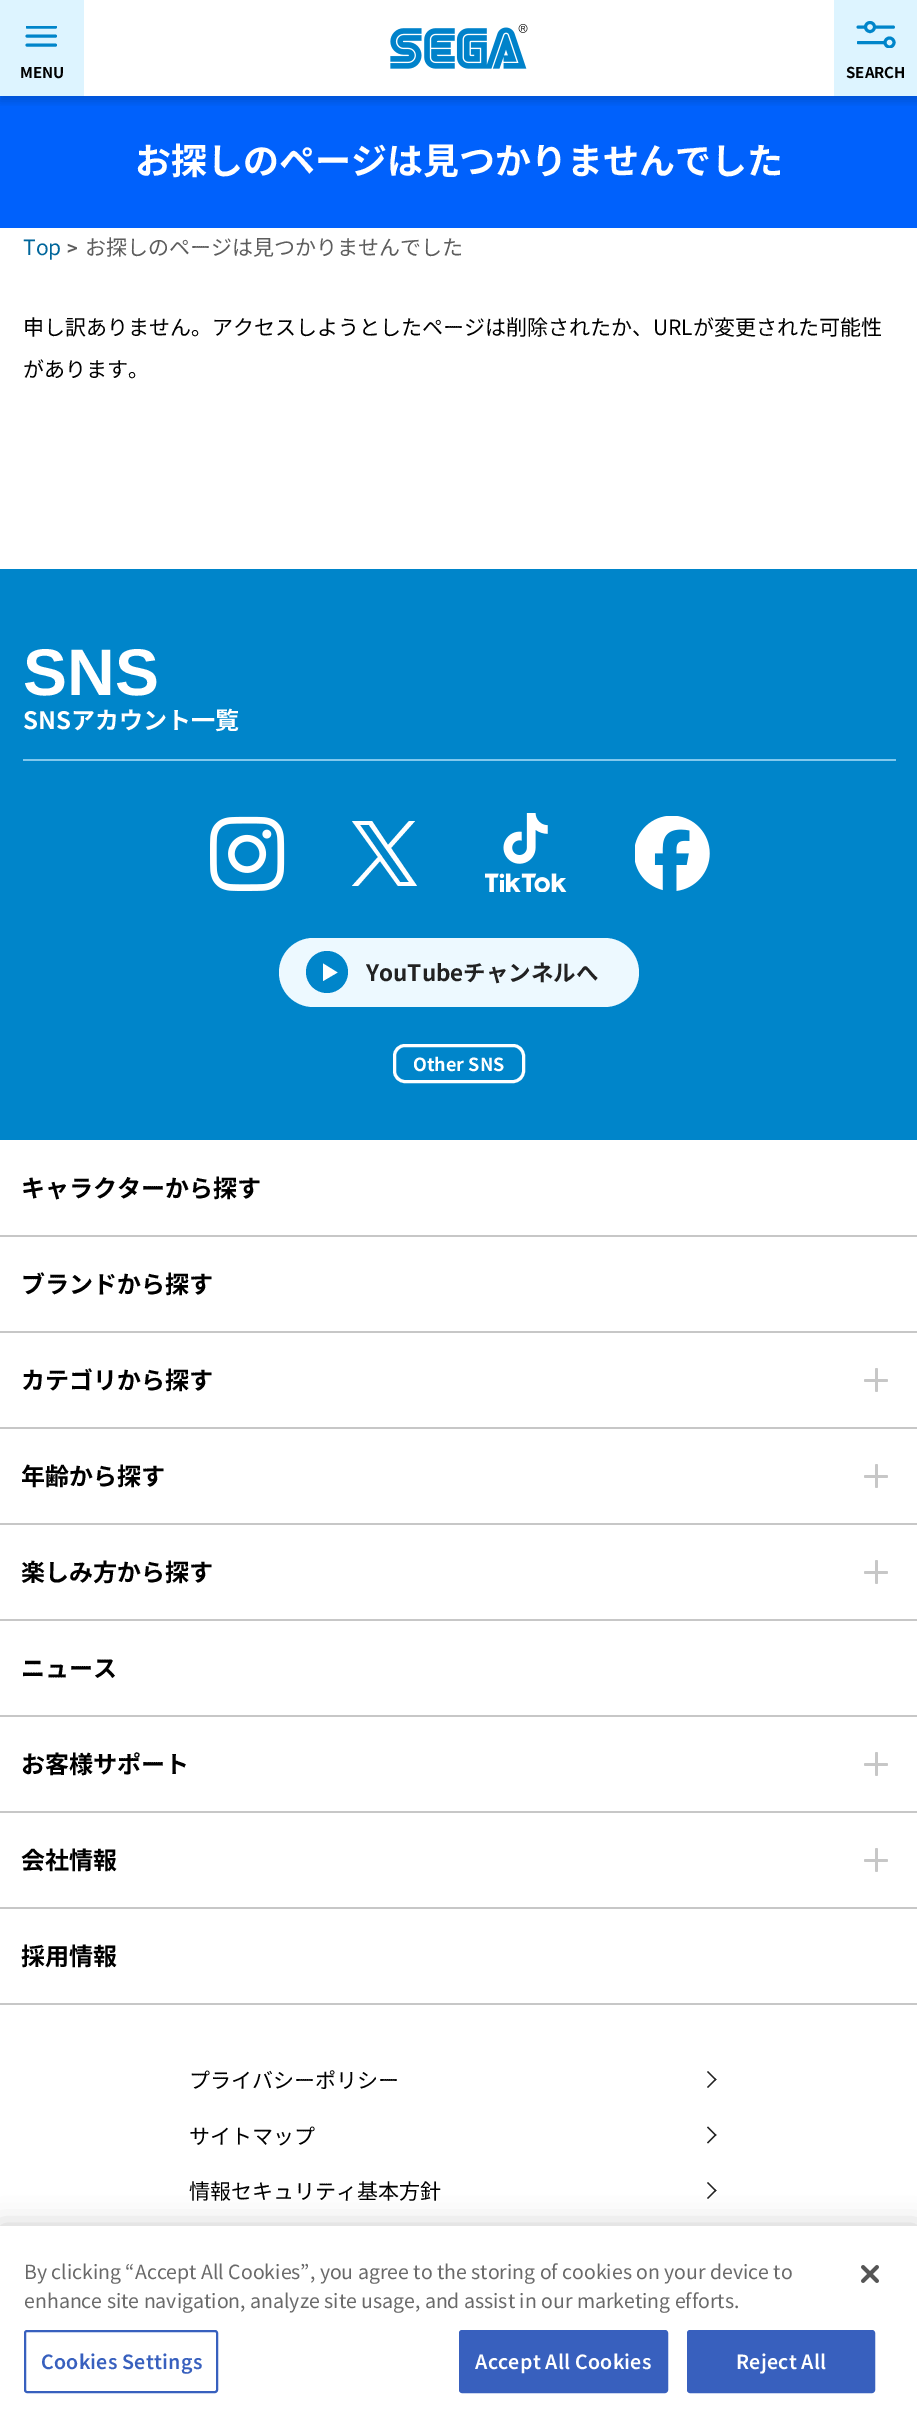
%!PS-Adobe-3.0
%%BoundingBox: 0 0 917 2421
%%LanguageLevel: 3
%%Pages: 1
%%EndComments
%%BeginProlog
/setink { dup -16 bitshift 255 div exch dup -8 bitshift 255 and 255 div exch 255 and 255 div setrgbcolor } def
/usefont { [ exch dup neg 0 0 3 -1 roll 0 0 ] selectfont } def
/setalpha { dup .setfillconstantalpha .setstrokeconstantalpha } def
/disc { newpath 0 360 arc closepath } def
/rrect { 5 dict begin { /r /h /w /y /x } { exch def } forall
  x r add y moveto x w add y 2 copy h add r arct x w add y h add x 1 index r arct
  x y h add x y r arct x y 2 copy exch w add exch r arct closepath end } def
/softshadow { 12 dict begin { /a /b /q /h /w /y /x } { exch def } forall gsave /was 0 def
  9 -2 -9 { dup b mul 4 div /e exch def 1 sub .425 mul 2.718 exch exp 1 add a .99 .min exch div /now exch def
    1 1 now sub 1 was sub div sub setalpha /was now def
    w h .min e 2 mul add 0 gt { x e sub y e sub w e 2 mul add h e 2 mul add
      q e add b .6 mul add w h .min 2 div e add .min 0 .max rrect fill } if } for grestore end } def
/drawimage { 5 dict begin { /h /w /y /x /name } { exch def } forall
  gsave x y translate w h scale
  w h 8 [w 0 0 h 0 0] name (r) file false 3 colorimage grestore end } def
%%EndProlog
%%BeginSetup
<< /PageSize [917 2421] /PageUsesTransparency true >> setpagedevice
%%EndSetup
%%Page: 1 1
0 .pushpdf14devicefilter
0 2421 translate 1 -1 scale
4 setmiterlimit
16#FFFFFF setink
0 0 917 2421 rectfill
16#0061FC setink
0 96 917 132 rectfill
gsave
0 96 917 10 rectclip
16#000000 setink
0 5 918 96 0 4.5 0.16 softshadow
grestore
(img1.raw) 390 24 138 45 drawimage
16#DDF4FF setink
0 0 84 96 rectfill
gsave
26 26 31 21 rectclip
16#0085CA setink
3 setlinewidth
1 setlinecap
27 27 moveto 55.5 27 lineto stroke
grestore
16#0085CA setink
3 setlinewidth
1 setlinecap
27 36 moveto 55.5 36 lineto 27 45 moveto 55.5 45 lineto stroke
/NotoSansJP-Bold 15 usefont
16#000000 setink
20 78 moveto (MENU) show
16#DDF4FF setink
834 0 83 96 rectfill
16#0085CA setink
2.9 setlinewidth
0 setlinecap
870 27 4.5 disc stroke
gsave
857 21 39 27 rectclip
889.5 42.5 4.5 disc stroke
grestore
1 setlinecap
876.5 27 moveto 893.5 27 lineto stroke
gsave
857 21 39 27 rectclip
858 42.5 moveto 884 42.5 lineto stroke
grestore
858 27 moveto 864.5 27 lineto stroke
16#000000 setink
846 78 moveto (SEARCH) show
/NotoSansJP-Bold 36 usefont
16#FFFFFF setink
135 174 moveto (お探しのページは見つかりませんでした) show
/NotoSansJP-Regular 21 usefont
16#00669B setink
23 255 moveto (Top) show
/NotoSansJP-Bold 18 usefont
16#5D5D5D setink
67 255 moveto (>) show
/NotoSansJP-Regular 21 usefont
85 255 moveto (お探しのページは見つかりませんでした) show
16#000000 setink
23 335 moveto (申し訳ありません。アクセスしようとしたページは削除されたか、URLが変更された可能性) show
23 377 moveto (があります。) show
16#0085CA setink
0 569 917 571 rectfill
16#81C8ED setink
23 759 873 2 rectfill
/LiberationSans-Bold 66 usefont
16#FFFFFF setink
23 695 moveto (SNS) show
/NotoSansJP-Bold 24 usefont
23 729 moveto (SNSアカウント一覧) show
(img2.raw) 210 816 75 75 drawimage
391 848 moveto 415 821 lineto 409 821 lineto 388 845 lineto 372 821 lineto 352 821 lineto 378 857 lineto 352 886 lineto 358 886 lineto 380 861 lineto 398 886 lineto 417 886 lineto closepath 383 858 moveto 360 825 lineto 369 825 lineto 409 882 lineto 400 882 lineto closepath fill
(img3.raw) 485 813 82 79 drawimage
(img4.raw) 635 816 75 75 drawimage
16#EDF9FF setink
279 938 360 69 34.5 rrect fill
16#0085CA setink
327 972 21 disc fill
/NotoSansJP-Bold 22.5 usefont
16#222222 setink
366 981 moveto (YouTubeチャンネルへ) show
16#FFFFFF setink
323 981 moveto 323 963.5 lineto 337.5 972.5 lineto closepath fill
3 setlinewidth
0 setlinecap
394.5 1045.5 129 36 10.5 rrect stroke
/NotoSansJP-Bold 18 usefont
413 1071 moveto (Other SNS) show
16#C7C7C7 setink
0 1235 917 2 rectfill
/NotoSansJP-Bold 24 usefont
16#000000 setink
21 1197 moveto (キャラクターから探す) show
16#C7C7C7 setink
0 1331 917 2 rectfill
16#000000 setink
21 1293 moveto (ブランドから探す) show
16#C7C7C7 setink
0 1427 917 2 rectfill
16#000000 setink
21 1389 moveto (カテゴリから探す) show
16#C7C7C7 setink
864 1379 24 3 1.5 rrect fill
875 1368 3 24 1.5 rrect fill
0 1523 917 2 rectfill
16#000000 setink
21 1485 moveto (年齢から探す) show
16#C7C7C7 setink
864 1475 24 3 1.5 rrect fill
875 1464 3 24 1.5 rrect fill
0 1619 917 2 rectfill
16#000000 setink
21 1581 moveto (楽しみ方から探す) show
16#C7C7C7 setink
864 1571 24 3 1.5 rrect fill
875 1560 3 24 1.5 rrect fill
0 1715 917 2 rectfill
16#000000 setink
21 1677 moveto (ニュース) show
16#C7C7C7 setink
0 1811 917 2 rectfill
16#000000 setink
21 1773 moveto (お客様サポート) show
16#C7C7C7 setink
864 1763 24 3 1.5 rrect fill
875 1752 3 24 1.5 rrect fill
0 1907 917 2 rectfill
16#000000 setink
21 1869 moveto (会社情報) show
16#C7C7C7 setink
864 1859 24 3 1.5 rrect fill
875 1848 3 24 1.5 rrect fill
0 2003 917 2 rectfill
16#000000 setink
21 1965 moveto (採用情報) show
/NotoSansJP-Regular 21 usefont
189 2088 moveto (プライバシーポリシー) show
16#222222 setink
708 2071 moveto 716.5 2079.5 lineto 715.5 2080.5 lineto 707 2072 lineto closepath fill
715.5 2078.5 moveto 716.5 2079.5 lineto 708 2088 lineto 707 2087 lineto closepath fill
16#000000 setink
189 2144 moveto (サイトマップ) show
16#222222 setink
708 2126.5 moveto 716.5 2135 lineto 715.5 2136 lineto 707 2127.5 lineto closepath fill
715.5 2134 moveto 716.5 2135 lineto 708 2143.5 lineto 707 2142.5 lineto closepath fill
16#000000 setink
189 2199 moveto (情報セキュリティ基本方針) show
16#222222 setink
708 2182 moveto 716.5 2190.5 lineto 715.5 2191.5 lineto 707 2183 lineto closepath fill
715.5 2189.5 moveto 716.5 2190.5 lineto 708 2199 lineto 707 2198 lineto closepath fill
16#000000 setink
0 2226 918 195 0 13.5 0.2 softshadow
16#FFFFFF setink
0 2226 917 195 rectfill
/NotoSansJP-Regular 19.5 usefont
16#696969 setink
24 2279 moveto (By clicking “Accept All Cookies”, you agree to the storing of cookies on your device to) show
24 2308 moveto (enhance site navigation, analyze site usage, and assist in our marketing efforts.) show
16#3860BE setink
2 setlinewidth
25 2331 192 61 2 rrect stroke
/NotoSansJP-SemiBold 19.5 usefont
41 2369 moveto 0.25 0 (Cookies Settings) ashow
460 2331 207 61 2 rrect gsave fill grestore
stroke
16#FFFFFF setink
475 2369 moveto 0.25 0 (Accept All Cookies) ashow
16#3860BE setink
688 2331 186 61 2 rrect gsave fill grestore
stroke
16#FFFFFF setink
736 2369 moveto 0.25 0 (Reject All) ashow
(img5.raw) 861 2265 18 18 drawimage
.poppdf14devicefilter showpage
%%EOF
